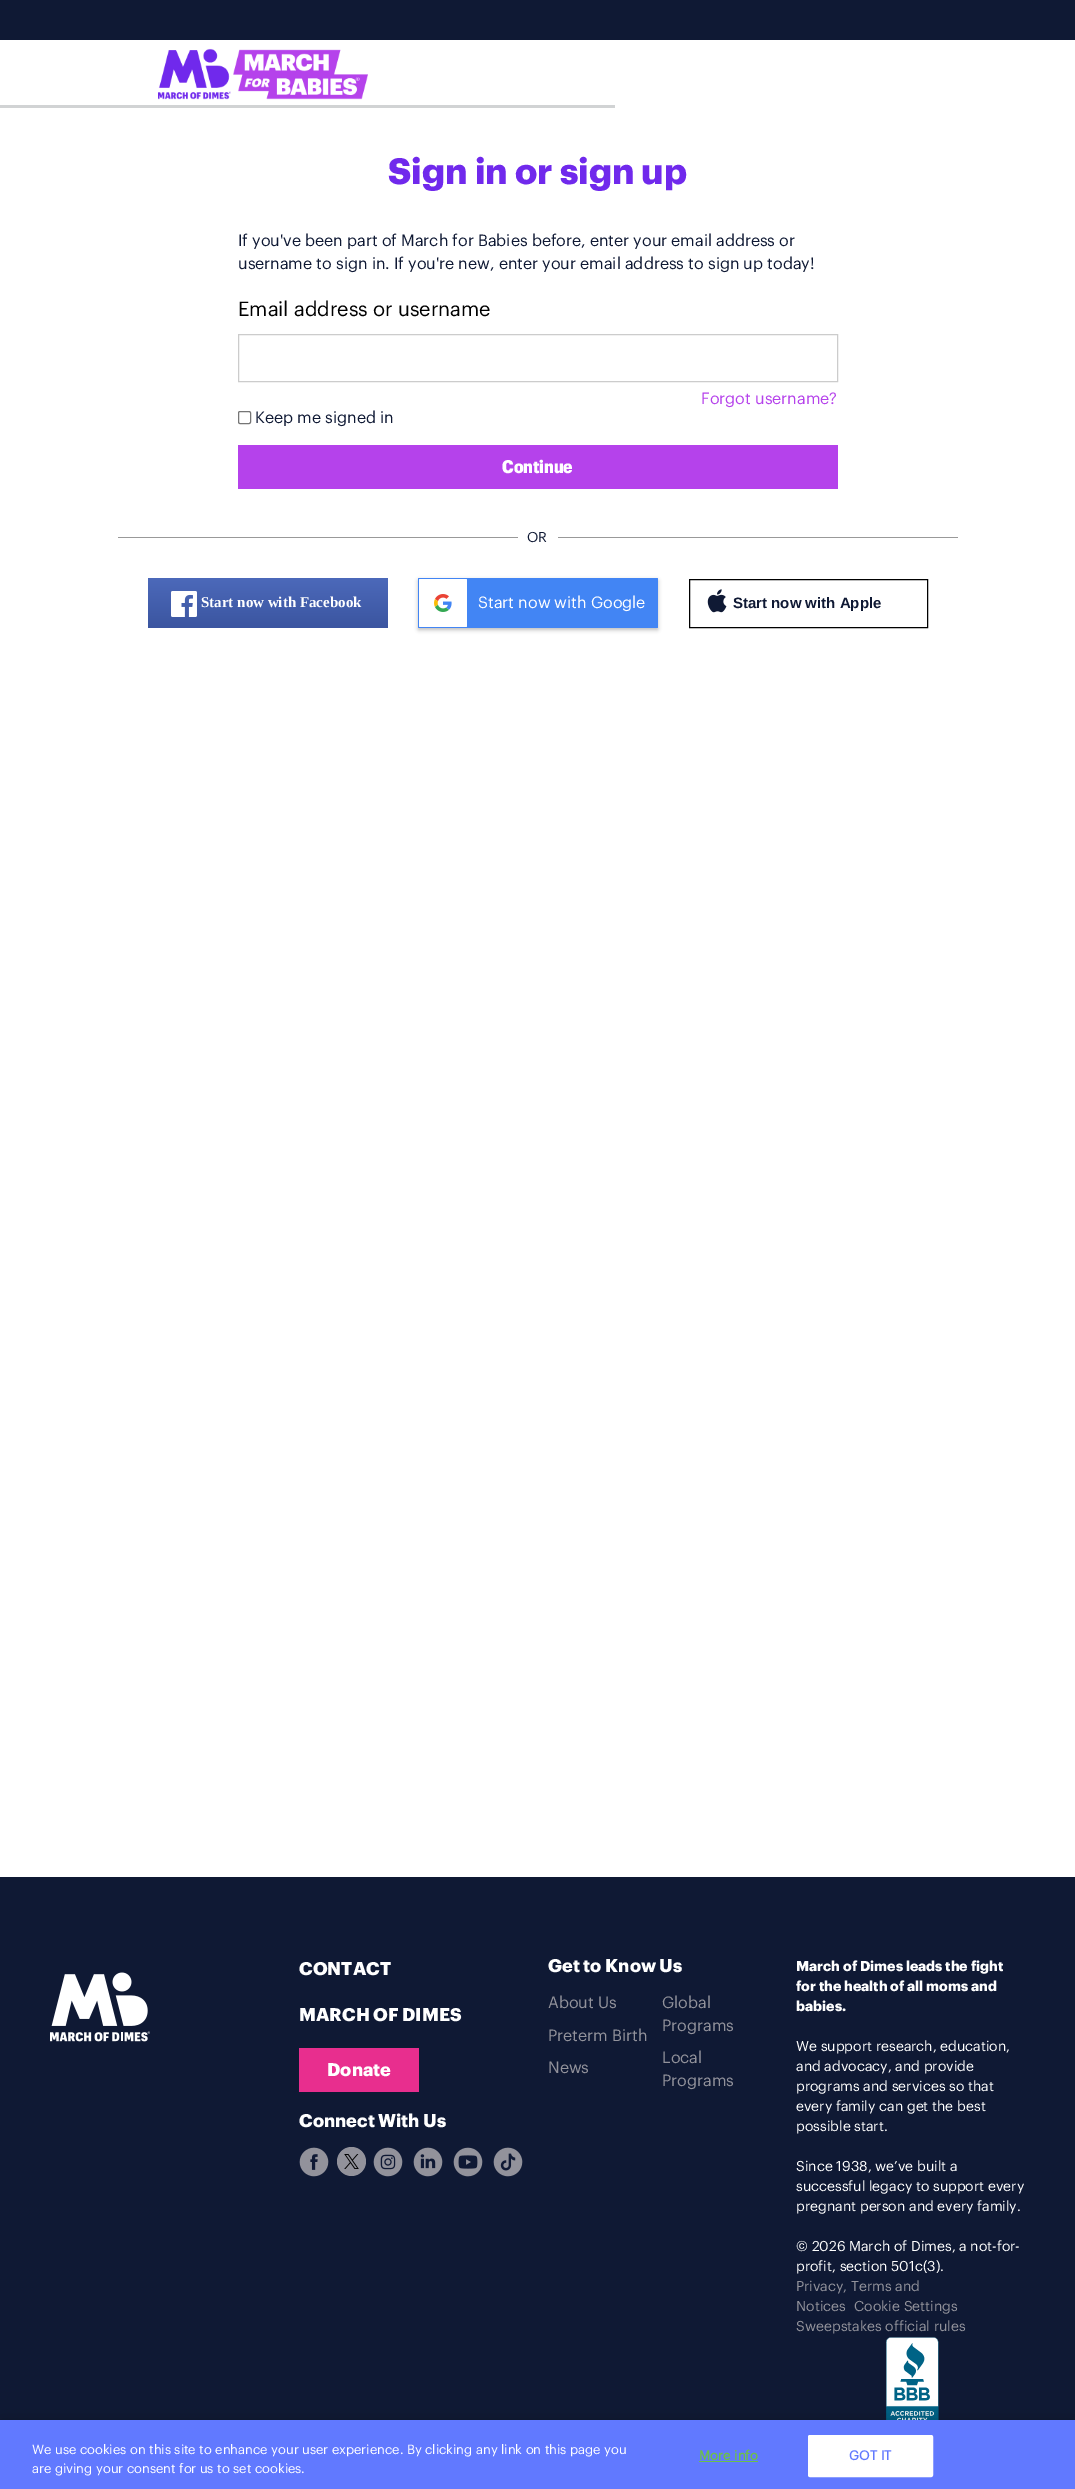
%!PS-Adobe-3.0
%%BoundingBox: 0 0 1075 2489
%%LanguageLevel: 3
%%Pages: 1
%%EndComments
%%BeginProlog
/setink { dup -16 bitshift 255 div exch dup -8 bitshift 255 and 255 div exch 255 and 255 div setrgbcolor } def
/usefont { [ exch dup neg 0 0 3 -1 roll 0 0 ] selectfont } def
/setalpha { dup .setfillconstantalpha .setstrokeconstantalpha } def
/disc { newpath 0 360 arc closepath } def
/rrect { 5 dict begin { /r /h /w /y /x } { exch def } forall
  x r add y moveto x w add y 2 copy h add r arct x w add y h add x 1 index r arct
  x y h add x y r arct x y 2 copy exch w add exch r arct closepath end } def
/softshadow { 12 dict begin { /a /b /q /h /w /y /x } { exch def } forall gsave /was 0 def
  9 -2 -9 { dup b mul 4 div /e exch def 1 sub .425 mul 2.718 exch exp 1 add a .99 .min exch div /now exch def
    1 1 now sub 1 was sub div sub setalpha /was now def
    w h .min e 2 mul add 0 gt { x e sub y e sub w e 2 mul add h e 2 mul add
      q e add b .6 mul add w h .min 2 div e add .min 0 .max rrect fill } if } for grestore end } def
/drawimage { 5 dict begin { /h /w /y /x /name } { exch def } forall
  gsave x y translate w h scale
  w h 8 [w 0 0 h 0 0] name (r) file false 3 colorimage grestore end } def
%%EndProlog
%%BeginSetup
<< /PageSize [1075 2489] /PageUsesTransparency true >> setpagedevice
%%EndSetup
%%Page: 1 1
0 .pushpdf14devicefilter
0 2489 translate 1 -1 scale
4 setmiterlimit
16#FFFFFF setink
0 0 1075 2489 rectfill
16#0F1934 setink
0 0 1075 40 rectfill
16#D1D3D4 setink
0 105 615 3 rectfill
(img1.raw) 158 48 210 52 drawimage
/Graphik-Bold 36 usefont
16#7029EC setink
388 184 moveto (Sign in or sign up) show
/Graphik-Regular 16 usefont
16#0F1934 setink
238 246 moveto (If you've been part of March for Babies before, enter your email address or) show
238 269 moveto (username to sign in. If you're new, enter your email address to sign up today!) show
/Graphik-Regular 20 usefont
16#000000 setink
238 316 moveto (Email address or username) show
16#CCCCCC setink
238.5 334.5 599 47 rectstroke
/Graphik-Regular 16 usefont
16#B542EB setink
701 404 moveto (Forgot username?) show
16#767676 setink
238.5 411.5 12 12 1.5 rrect stroke
16#0F1934 setink
255 423 moveto (Keep me signed in) show
16#B542EB setink
238 445 600 44 rectfill
/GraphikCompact-Black 18 usefont
16#FFFFFF setink
502 473 moveto (Continue) show
16#999999 setink
118 537 400 1 rectfill
/Graphik-Regular 14 usefont
16#0F1934 setink
527 542 moveto (OR) show
16#999999 setink
558 537 400 1 rectfill
gsave 148 578 240 50 2 rrect clip newpath
<< /ShadingType 2 /ColorSpace /DeviceRGB /Coords [268 578 268 628] /Extend [true true] /Function << /FunctionType 2 /Domain [0 1] /C0 [0.298 0.412 0.729] /C1 [0.231 0.333 0.627] /N 1 >> >> shfill grestore
(img2.raw) 171 591 26 26 drawimage
/LiberationSerif-Bold 15 usefont
16#FFFFFF setink
201 607 moveto (Start now with Facebook) show
16#000000 setink
418 580 240 50 1 2 0.25 softshadow
16#4285F4 setink
418 578 240 50 1 rrect fill
16#FFFFFF setink
419 579 48 48 1 rrect fill
(img3.raw) 434 594 18 18 drawimage
/Graphik-Regular 16 usefont
478 608 moveto (Start now with Google) show
16#000000 setink
689.5 579.5 238 48 rectstroke
(img4.raw) 707 589 20 24 drawimage
/LiberationSans-Bold 15 usefont
16#0F1934 setink
733 608 moveto (Start now with Apple) show
0 1877 1075 543 rectfill
(img5.raw) 50 1972 100 70 drawimage
/Graphik-Bold 18 usefont
16#FFFFFF setink
299 1975 moveto (CONTACT) show
299 2021 moveto (MARCH OF DIMES) show
16#E82E8E setink
299 2048 120 44 rectfill
16#FFFFFF setink
327 2076 moveto (Donate) show
299 2127 moveto (Connect With Us) show
(img6.raw) 299 2147 30 30 drawimage
16#92929B setink
351.5 2161.5 14.5 disc fill
(img7.raw) 344 2154 15 15 drawimage
(img8.raw) 373 2147 30 30 drawimage
(img9.raw) 413 2147 30 30 drawimage
(img10.raw) 453 2147 30 30 drawimage
(img11.raw) 493 2147 30 30 drawimage
16#FFFFFF setink
548 1972 moveto (Get to Know Us) show
/Graphik-Regular 16 usefont
16#92929B setink
[
    [(About Us) 548 2008]
    [(Preterm Birth) 548 2041]
    [(News) 548 2073]
    [(Global) 662 2008]
    [(Programs) 662 2031]
    [(Local) 662 2063]
    [(Programs) 662 2086]
] { aload pop moveto show } forall
/Graphik-Bold 14 usefont
16#FFFFFF setink
[
    [(March of Dimes leads the fight) 796 1971]
    [(for the health of all moms and) 796 1991]
    [(babies.) 796 2011]
] { aload pop moveto show } forall
/Graphik-Regular 14 usefont
[
    [(We support research, education,) 796 2051]
    [(and advocacy, and provide) 796 2071]
    [(programs and services so that) 796 2091]
    [(every family can get the best) 796 2111]
    [(possible start.) 796 2131]
    [(Since 1938, we’ve built a) 796 2171]
    [(successful legacy to support every) 796 2191]
    [(pregnant person and every family.) 796 2211]
    [(© 2026 March of Dimes, a not-for-) 796 2251]
    [(profit, section 501c\(3\).) 796 2271]
] { aload pop moveto show } forall
16#92929B setink
[
    [(Privacy, Terms and) 796 2291]
    [(Notices) 796 2311]
    [(Cookie Settings) 854 2311]
    [(Sweepstakes official rules) 796 2331]
] { aload pop moveto show } forall
(img12.raw) 886 2337 53 83 drawimage
16#000000 setink
0 2420 1075 69 0 9 0.2 softshadow
16#6179FF setink
0 2420 1075 69 rectfill
/Graphik-Regular 13 usefont
16#FFFFFF setink
32 2454 moveto (We use cookies on this site to enhance your user experience. By clicking any link on this page you) show
32 2473 moveto (are giving your consent for us to set cookies.) show
/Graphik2-Bold 13 usefont
16#6CC04A setink
699 2460 moveto 0.1 0 (More info) ashow
699 2461 59 1 rectfill
16#FFFFFF setink
808.5 2435.5 124 41 1.5 rrect gsave fill grestore
stroke
16#6179FF setink
849 2460 moveto 0.1 0 (GOT IT) ashow
.poppdf14devicefilter showpage
%%EOF
